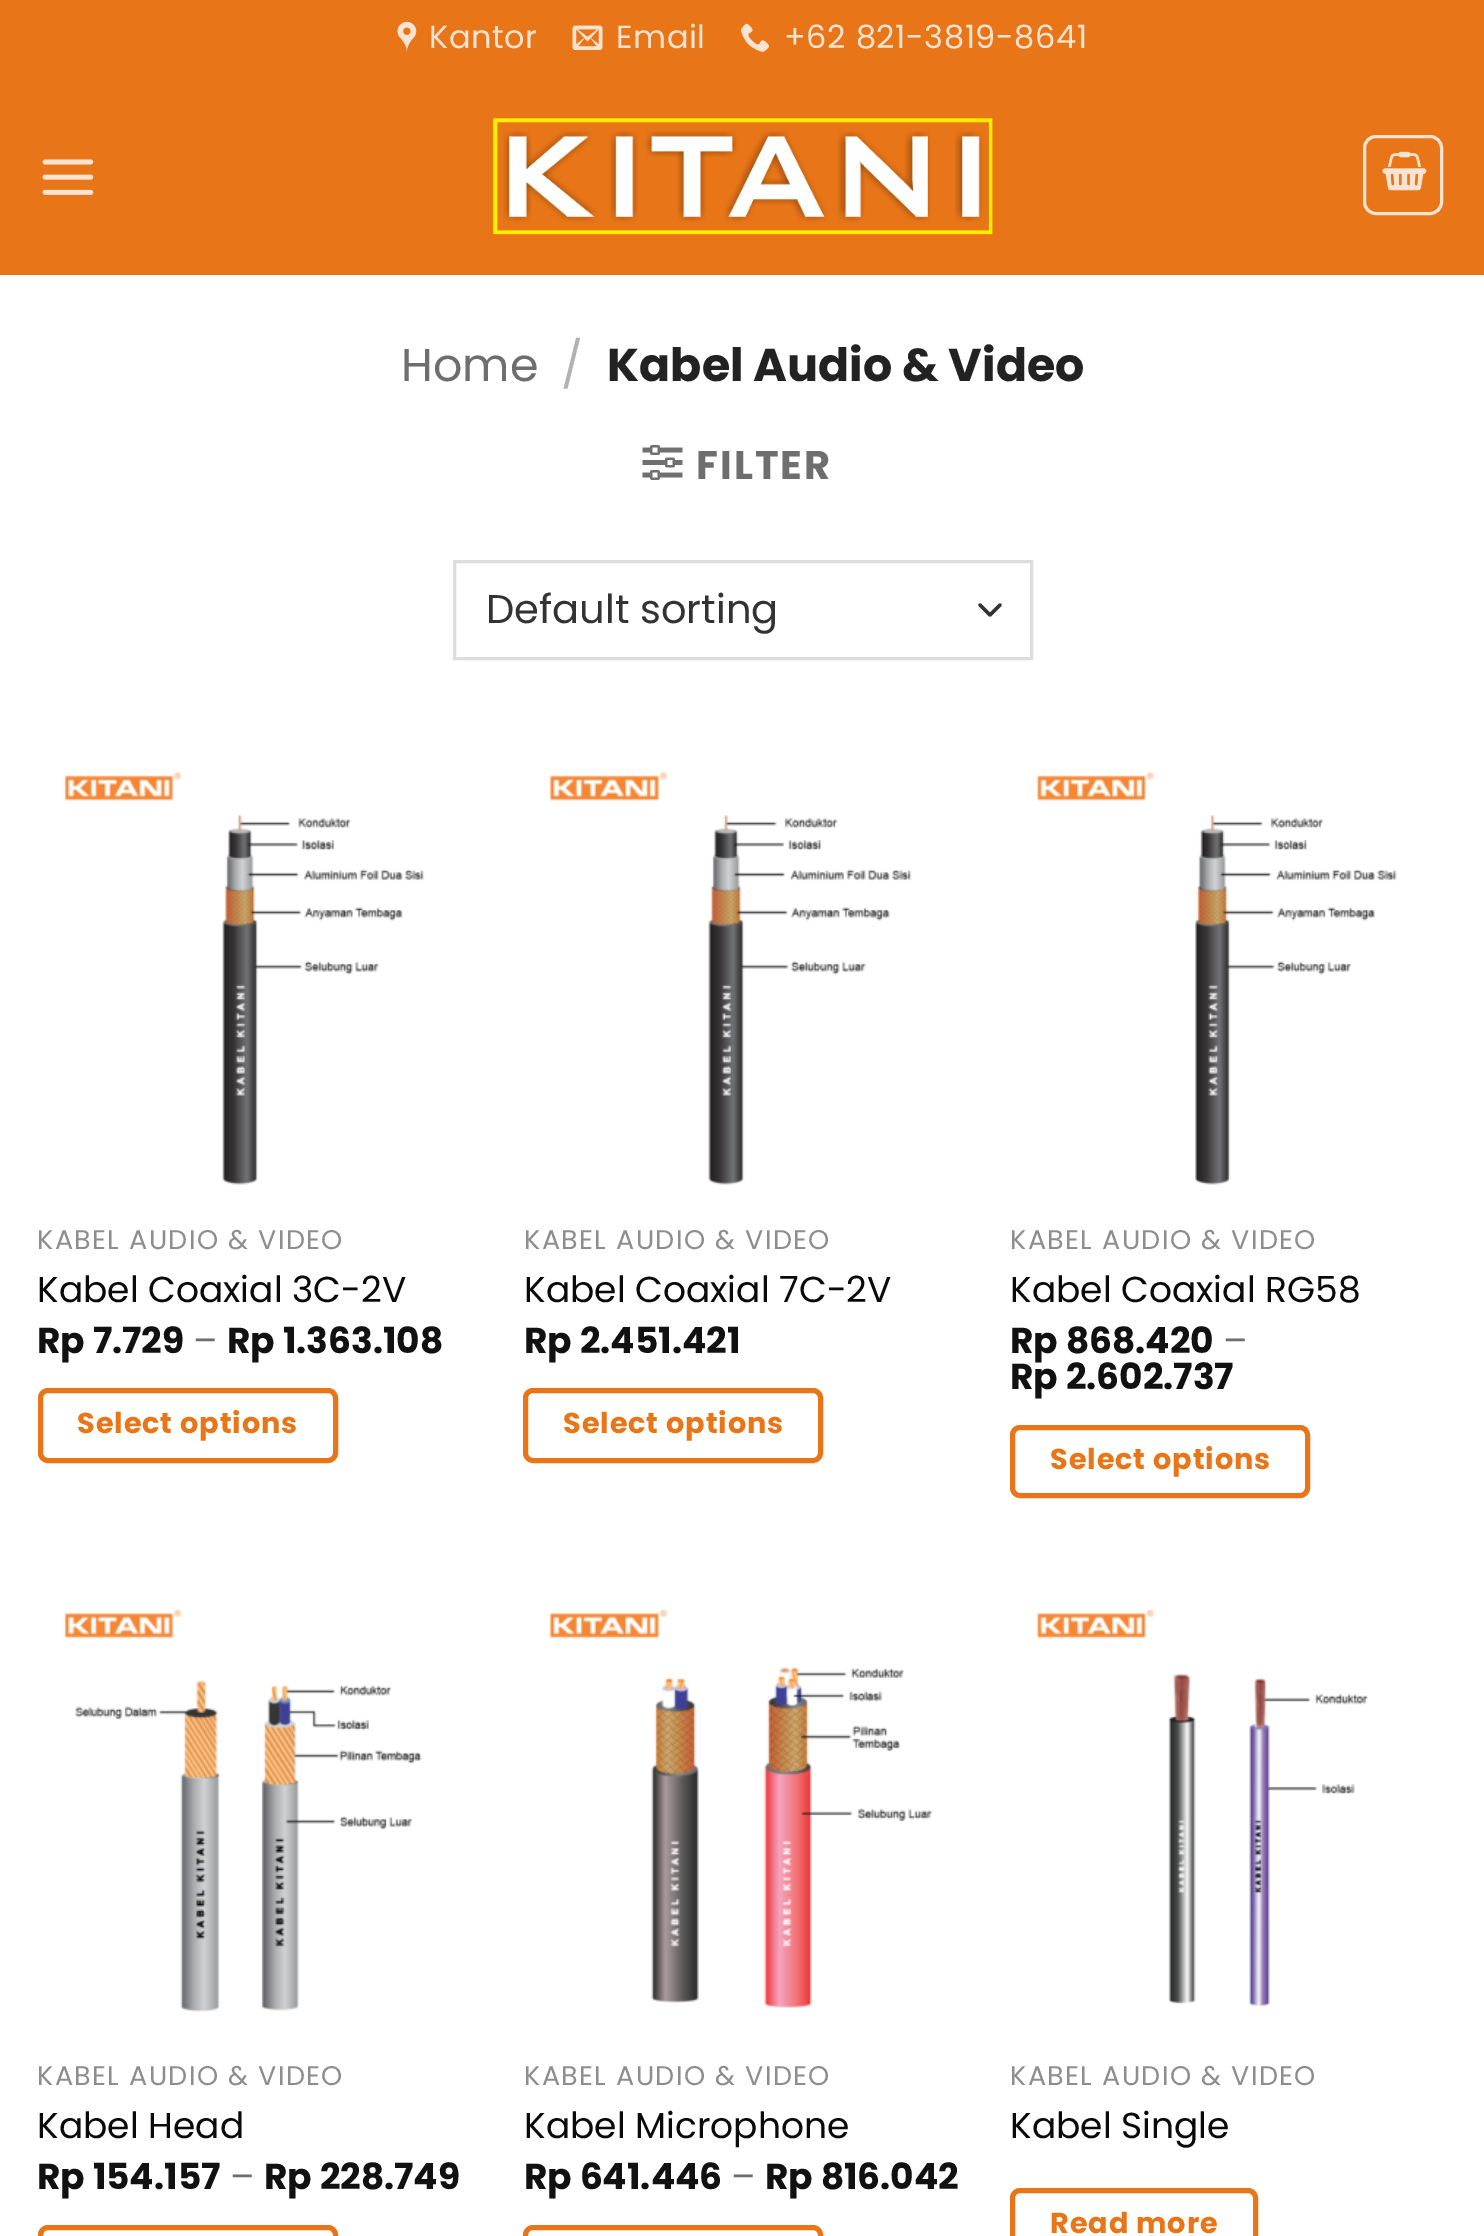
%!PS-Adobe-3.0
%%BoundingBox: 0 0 1484 2236
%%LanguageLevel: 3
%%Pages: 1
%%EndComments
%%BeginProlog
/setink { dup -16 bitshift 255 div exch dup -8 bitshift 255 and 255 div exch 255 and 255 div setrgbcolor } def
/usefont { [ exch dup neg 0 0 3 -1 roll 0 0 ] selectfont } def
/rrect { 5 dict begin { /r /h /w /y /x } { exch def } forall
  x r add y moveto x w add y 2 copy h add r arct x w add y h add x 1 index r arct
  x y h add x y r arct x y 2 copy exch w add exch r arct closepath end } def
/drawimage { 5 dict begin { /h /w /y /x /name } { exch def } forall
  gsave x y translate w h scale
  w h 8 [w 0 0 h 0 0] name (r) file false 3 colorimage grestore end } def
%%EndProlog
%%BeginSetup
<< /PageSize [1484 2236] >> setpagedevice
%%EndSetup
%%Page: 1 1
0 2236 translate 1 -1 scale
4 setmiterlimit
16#FFFFFF setink
0 0 1484 2236 rectfill
16#E87618 setink
0 0 1484 275 rectfill
(img1.raw) 397 21 20 31 drawimage
/Poppins-Regular 32 usefont
16#FAE4D1 setink
429 48 moveto 0.6 0 (Kantor) ashow
(img2.raw) 572 25 31 25 drawimage
616 48 moveto 0.6 0 (Email) ashow
(img3.raw) 741 23 28 29 drawimage
784 48 moveto 0.6 0 (+62 821-3819-8641) ashow
(img4.raw) 42 159 52 36 drawimage
(img5.raw) 492 118 501 117 drawimage
3 setlinewidth
1364.5 136.5 77 77 11.5 rrect stroke
(img6.raw) 1382 151 45 40 drawimage
/Poppins-Regular 46 usefont
16#6E6E6E setink
401 381 moveto (Home) show
16#B2B2B2 setink
561 381 moveto (/) show
/Poppins-Bold 46 usefont
16#222222 setink
607 381 moveto (Kabel Audio & Video) show
(img7.raw) 642 445 41 35 drawimage
/Poppins-Bold 40 usefont
16#6E6E6E setink
696 479 moveto 2 0 (FILTER) ashow
16#333333 setink
3.3 setlinewidth
1 setlinecap
1 setlinejoin
980 605 moveto 990 615 lineto 1000 605 lineto stroke
16#DDDDDD setink
3 setlinewidth
0 setlinecap
0 setlinejoin
454.5 561.5 577 97 rectstroke
/Poppins-Regular 40 usefont
16#333333 setink
486 623 moveto (Default sorting) show
(img8.raw) 63 771 362 414 drawimage
/Poppins-Regular 27 usefont
16#8D8D8D setink
37 1249 moveto 1.4 0 (KABEL AUDIO & VIDEO) ashow
/Poppins-Regular 36 usefont
16#0A0A0A setink
37 1302 moveto (Kabel Coaxial 3C-2V) show
/Poppins-Bold 36 usefont
16#111111 setink
37 1353 moveto (Rp 7.729) show
/Poppins-Regular 36 usefont
16#6E6E6E setink
193 1353 moveto (–) show
/Poppins-Bold 36 usefont
16#111111 setink
227 1353 moveto (Rp 1.363.108) show
16#E87618 setink
5 setlinewidth
40.5 1390.5 295 70 7.5 rrect stroke
/Poppins-Bold 28.75 usefont
77 1433 moveto 0.9 0 (Select options) ashow
(img9.raw) 549 771 363 414 drawimage
/Poppins-Regular 27 usefont
16#8D8D8D setink
524 1249 moveto 1.4 0 (KABEL AUDIO & VIDEO) ashow
/Poppins-Regular 36 usefont
16#0A0A0A setink
524 1302 moveto (Kabel Coaxial 7C-2V) show
/Poppins-Bold 36 usefont
16#111111 setink
524 1353 moveto (Rp 2.451.421) show
16#E87618 setink
525.5 1390.5 295 70 7.5 rrect stroke
/Poppins-Bold 28.75 usefont
563 1433 moveto 0.9 0 (Select options) ashow
(img10.raw) 1036 771 361 414 drawimage
/Poppins-Regular 27 usefont
16#8D8D8D setink
1010 1249 moveto 1.4 0 (KABEL AUDIO & VIDEO) ashow
/Poppins-Regular 36 usefont
16#0A0A0A setink
1010 1302 moveto (Kabel Coaxial RG58) show
/Poppins-Bold 36 usefont
16#111111 setink
1010 1353 moveto (Rp 868.420) show
/Poppins-Regular 36 usefont
16#6E6E6E setink
1223 1353 moveto (–) show
/Poppins-Bold 36 usefont
16#111111 setink
1010 1389 moveto (Rp 2.602.737) show
16#E87618 setink
1012.5 1427.5 295 68 7.5 rrect stroke
/Poppins-Bold 28.75 usefont
1050 1469 moveto 0.9 0 (Select options) ashow
(img11.raw) 63 1609 359 403 drawimage
/Poppins-Regular 27 usefont
16#8D8D8D setink
37 2085 moveto 1.4 0 (KABEL AUDIO & VIDEO) ashow
/Poppins-Regular 36 usefont
16#0A0A0A setink
37 2138 moveto (Kabel Head) show
/Poppins-Bold 36 usefont
16#111111 setink
37 2189 moveto (Rp 154.157) show
/Poppins-Regular 36 usefont
16#6E6E6E setink
230 2189 moveto (–) show
/Poppins-Bold 36 usefont
16#111111 setink
264 2189 moveto (Rp 228.749) show
16#E87618 setink
40.5 2227.5 295 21 7.5 rrect stroke
(img12.raw) 549 1609 383 399 drawimage
/Poppins-Regular 27 usefont
16#8D8D8D setink
524 2085 moveto 1.4 0 (KABEL AUDIO & VIDEO) ashow
/Poppins-Regular 36 usefont
16#0A0A0A setink
524 2138 moveto (Kabel Microphone) show
/Poppins-Bold 36 usefont
16#111111 setink
524 2189 moveto (Rp 641.446) show
/Poppins-Regular 36 usefont
16#6E6E6E setink
731 2189 moveto (–) show
/Poppins-Bold 36 usefont
16#111111 setink
765 2189 moveto (Rp 816.042) show
16#E87618 setink
525.5 2227.5 295 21 7.5 rrect stroke
(img13.raw) 1036 1609 332 398 drawimage
/Poppins-Regular 27 usefont
16#8D8D8D setink
1010 2085 moveto 1.4 0 (KABEL AUDIO & VIDEO) ashow
/Poppins-Regular 36 usefont
16#0A0A0A setink
1010 2138 moveto (Kabel Single) show
16#E87618 setink
1012.5 2190.5 243 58 7.5 rrect stroke
/Poppins-Bold 28.75 usefont
1050 2233 moveto 0.9 0 (Read more) ashow
showpage
%%EOF
